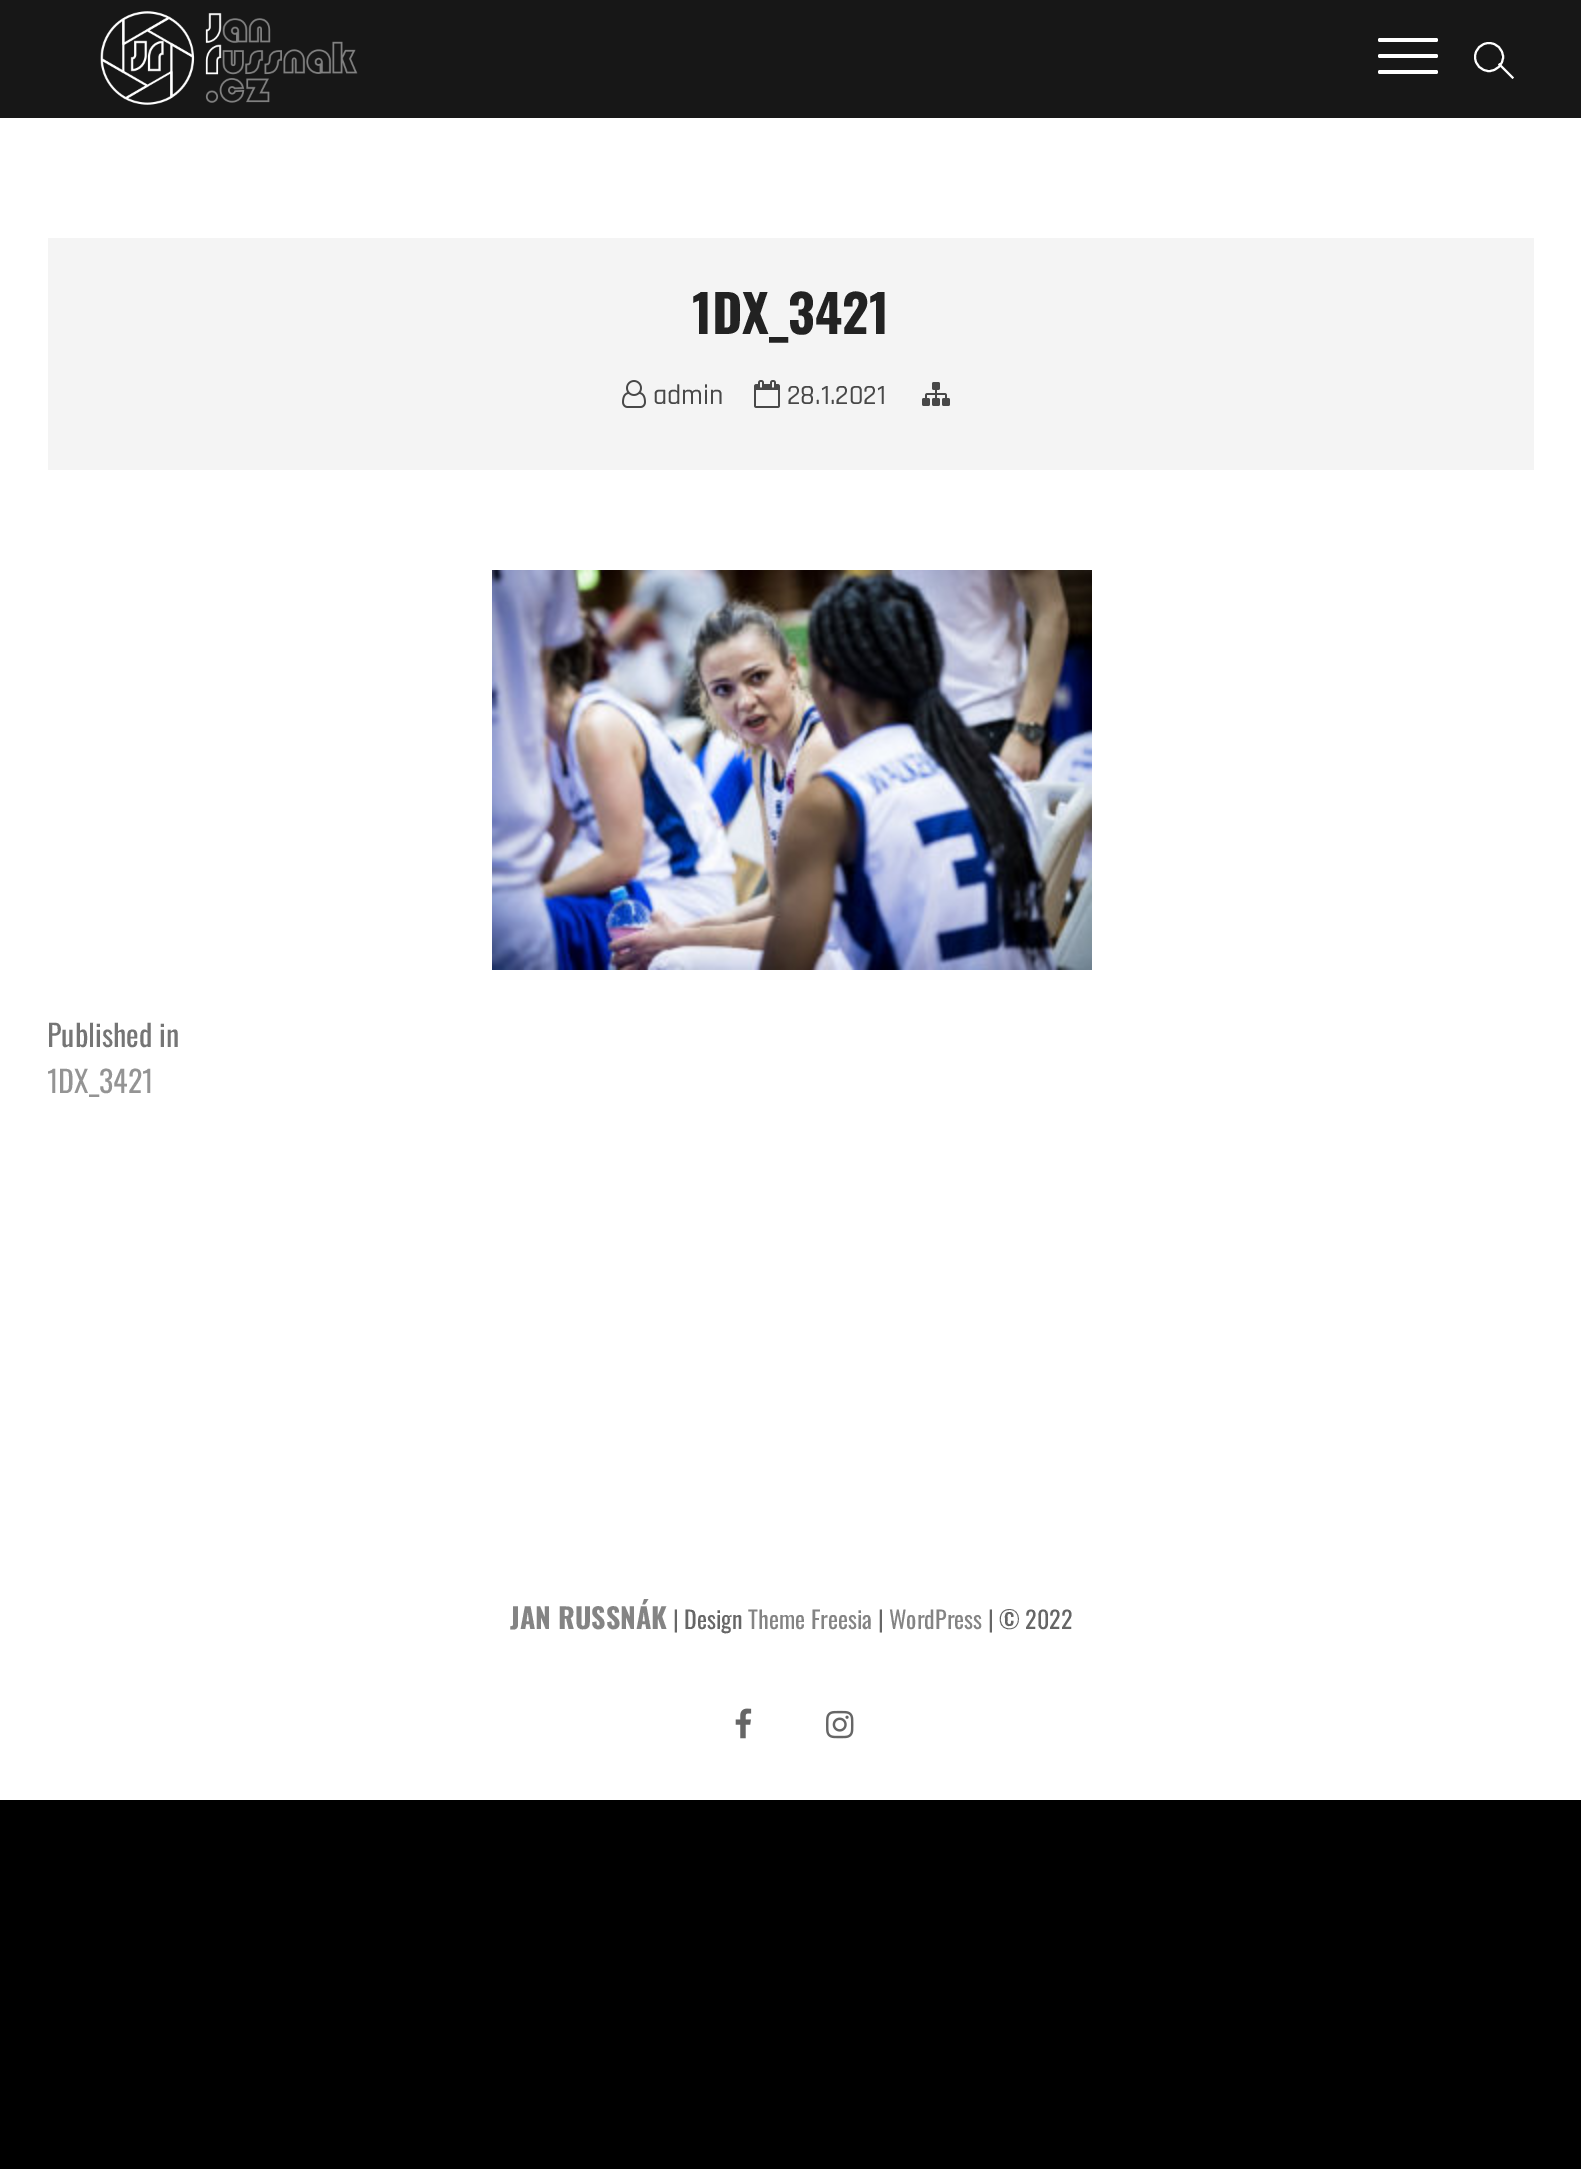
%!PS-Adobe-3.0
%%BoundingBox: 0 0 1581 2169
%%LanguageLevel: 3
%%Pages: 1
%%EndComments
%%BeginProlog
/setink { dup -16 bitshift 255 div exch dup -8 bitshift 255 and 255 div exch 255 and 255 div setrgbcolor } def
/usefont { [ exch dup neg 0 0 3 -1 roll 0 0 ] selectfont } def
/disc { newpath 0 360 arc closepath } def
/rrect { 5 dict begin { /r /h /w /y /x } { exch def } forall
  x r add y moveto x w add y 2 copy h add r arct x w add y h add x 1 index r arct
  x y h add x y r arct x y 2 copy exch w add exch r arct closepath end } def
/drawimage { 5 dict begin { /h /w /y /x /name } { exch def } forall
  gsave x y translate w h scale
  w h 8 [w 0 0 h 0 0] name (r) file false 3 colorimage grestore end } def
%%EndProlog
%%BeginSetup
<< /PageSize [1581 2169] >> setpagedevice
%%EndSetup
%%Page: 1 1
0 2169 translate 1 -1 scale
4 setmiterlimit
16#000000 setink
0 0 1581 2169 rectfill
16#FFFFFF setink
0 118 1581 1682 rectfill
16#171717 setink
0 0 1581 118 rectfill
(img1.raw) 100 11 258 94 drawimage
16#FFFFFF setink
1378 54 60 4 2 rrect fill
1378 38 60 4 2 rrect fill
1378 70 60 4 2 rrect fill
2 setlinewidth
1489 57 14 disc stroke
1498 64.5 moveto 1499.5 63 lineto 1514 77.5 lineto 1512.5 79 lineto closepath fill
16#F4F4F4 setink
48 238 1486 232 rectfill
/Oswald-Bold 52 usefont
16#222222 setink
692 334 moveto (1DX_3421) show
(img2.raw) 622 380 24 28 drawimage
/Rajdhani-Medium 28 usefont
16#484848 setink
653 404 moveto (admin) show
(img3.raw) 754 380 26 28 drawimage
787 404 moveto (28.1.2021) show
(img4.raw) 922 382 28 24 drawimage
(img5.raw) 492 570 600 400 drawimage
/Oswald-Regular 30 usefont
16#757575 setink
47 1047 moveto (Published in) show
16#949494 setink
47 1093 moveto (1DX_3421) show
/Oswald-Bold 28 usefont
16#848484 setink
510 1629 moveto (JAN RUSSNÁK) show
/Oswald-Regular 24 usefont
16#666666 setink
673 1629 moveto (| Design) show
16#848484 setink
748 1629 moveto (Theme Freesia) show
16#666666 setink
878 1629 moveto (|) show
16#848484 setink
889 1629 moveto (WordPress) show
16#666666 setink
988 1629 moveto (| © 2022) show
(img6.raw) 735 1708 17 31 drawimage
(img7.raw) 826 1710 28 29 drawimage
showpage
%%EOF
